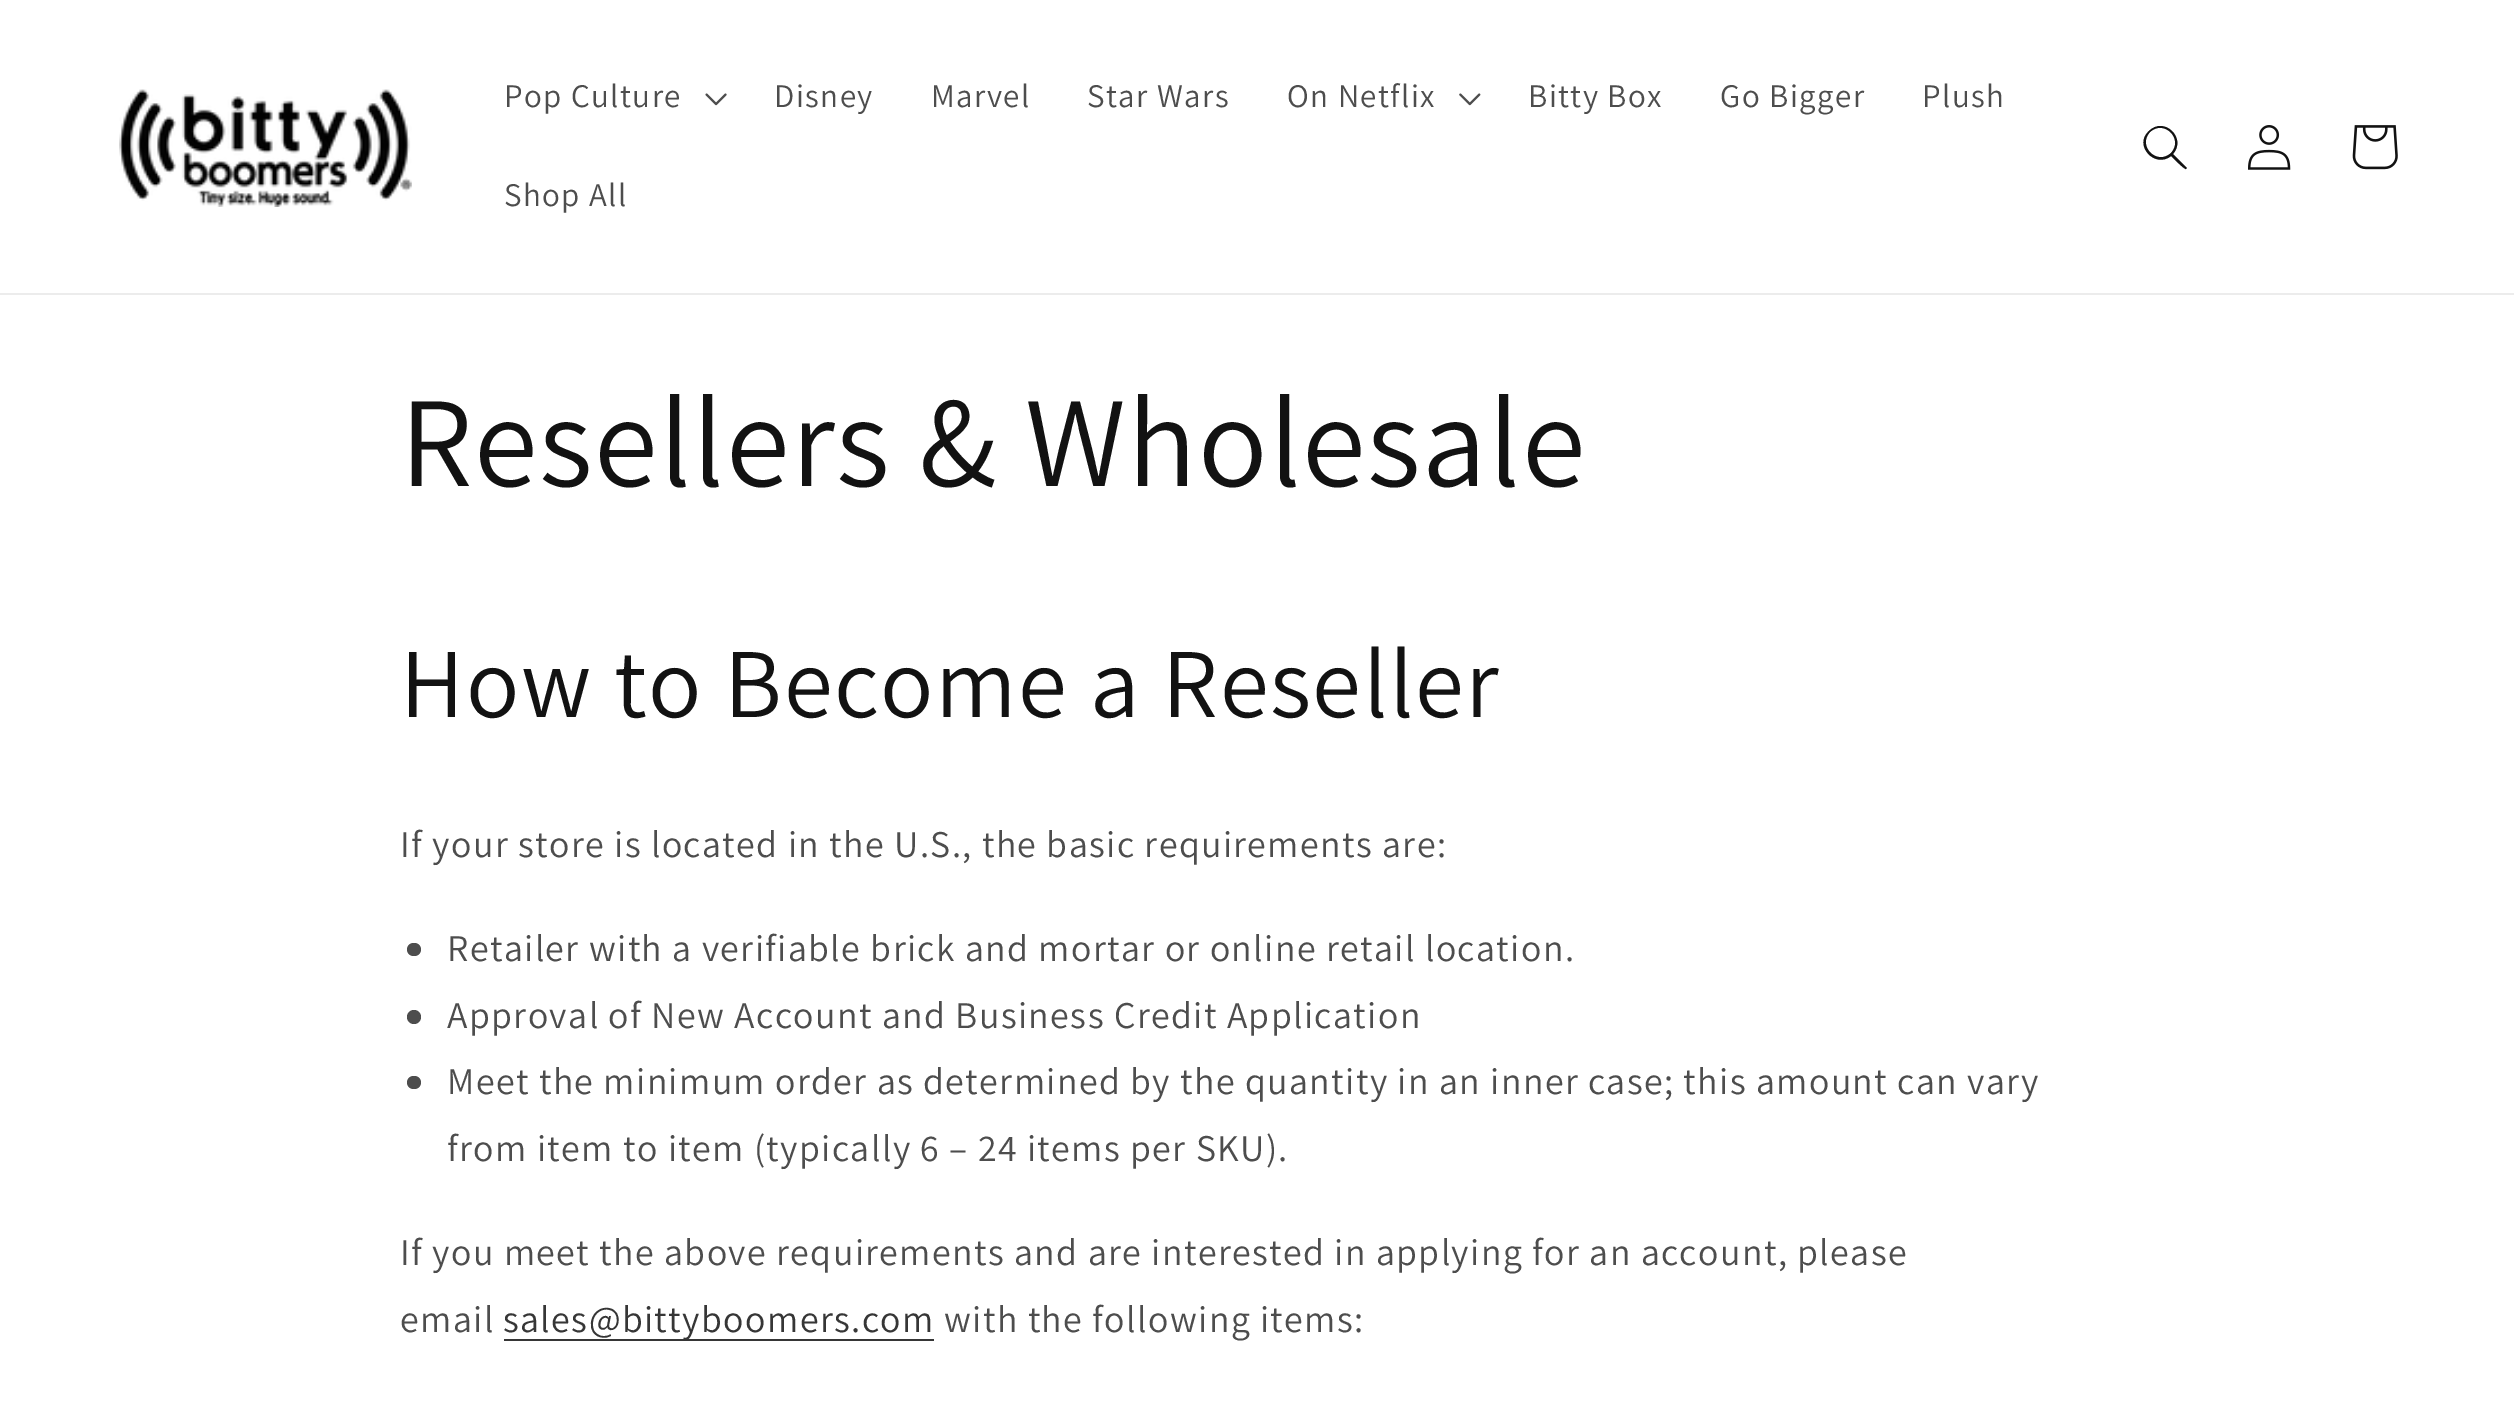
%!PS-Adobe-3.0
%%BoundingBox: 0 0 2514 1415
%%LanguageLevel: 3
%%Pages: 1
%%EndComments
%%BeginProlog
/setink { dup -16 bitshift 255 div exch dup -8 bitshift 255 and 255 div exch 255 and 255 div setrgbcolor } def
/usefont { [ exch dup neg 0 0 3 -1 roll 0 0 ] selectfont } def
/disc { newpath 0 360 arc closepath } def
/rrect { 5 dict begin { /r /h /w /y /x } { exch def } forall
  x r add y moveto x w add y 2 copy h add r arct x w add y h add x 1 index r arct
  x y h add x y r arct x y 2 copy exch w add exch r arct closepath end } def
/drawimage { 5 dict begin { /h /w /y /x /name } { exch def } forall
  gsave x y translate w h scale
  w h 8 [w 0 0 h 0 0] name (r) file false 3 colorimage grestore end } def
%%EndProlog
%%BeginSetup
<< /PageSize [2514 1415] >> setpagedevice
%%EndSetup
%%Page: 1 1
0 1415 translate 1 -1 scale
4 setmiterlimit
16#FFFFFF setink
0 0 2514 1415 rectfill
16#ECECEC setink
0 293 2514 2 rectfill
(img1.raw) 119 89 293 118 drawimage
/Assistant-Regular 33 usefont
16#4D4D4D setink
504 107 moveto 1.42 0 (Pop Culture) ashow
(img2.raw) 705 93 22 13 drawimage
774 107 moveto 1.42 0 (Disney) ashow
931 107 moveto 1.42 0 (Marvel) ashow
1087 107 moveto 1.42 0 (Star Wars) ashow
1287 107 moveto 1.42 0 (On Netflix) ashow
(img3.raw) 1459 93 22 13 drawimage
1528 107 moveto 1.42 0 (Bitty Box) ashow
1720 107 moveto 1.42 0 (Go Bigger) ashow
1922 107 moveto 1.42 0 (Plush) ashow
504 206 moveto 1.42 0 (Shop All) ashow
16#121212 setink
2171 153 moveto 2157 166 2137 146 2150 132 curveto 2164 119 2184 139 2171 153 curveto closepath 2171 156 moveto 2155 169 2133 145 2149 131 curveto 2164 116 2187 138 2173 154 curveto 2187 168 lineto 2186 169 lineto 2185 170 2173 158 2171 156 curveto closepath eofill
(img4.raw) 2248 125 43 45 drawimage
(img5.raw) 2352 125 46 45 drawimage
/Assistant-Regular 128.75 usefont
400 486 moveto 1.5 0 (Resellers & Wholesale) ashow
/Assistant-Regular 99 usefont
400 717 moveto 1.5 0 (How to Become a Reseller) ashow
/Assistant-Regular 37.8 usefont
16#4D4D4D setink
400 857 moveto 1.42 0 (If your store is located in the U.S., the basic requirements are:) ashow
407 943 14 13 6.5 rrect fill
447 961 moveto 1.42 0 (Retailer with a verifiable brick and mortar or online retail location.) ashow
414 1017 7 disc fill
447 1028 moveto 1.42 0 (Approval of New Account and Business Credit Application) ashow
407 1076 14 13 6.5 rrect fill
447 1094 moveto 1.42 0 (Meet the minimum order as determined by the quantity in an inner case; this amount can vary) ashow
447 1161 moveto 1.42 0 (from item to item \(typically 6 – 24 items per SKU\).) ashow
400 1265 moveto 1.42 0 (If you meet the above requirements and are interested in applying for an account, please) ashow
400 1332 moveto 1.42 0 (email) ashow
16#363636 setink
504 1339 430 2 rectfill
503 1332 moveto 1.42 0 (sales@bittyboomers.com) ashow
16#4D4D4D setink
944 1332 moveto 1.42 0 (with the following items:) ashow
showpage
%%EOF
